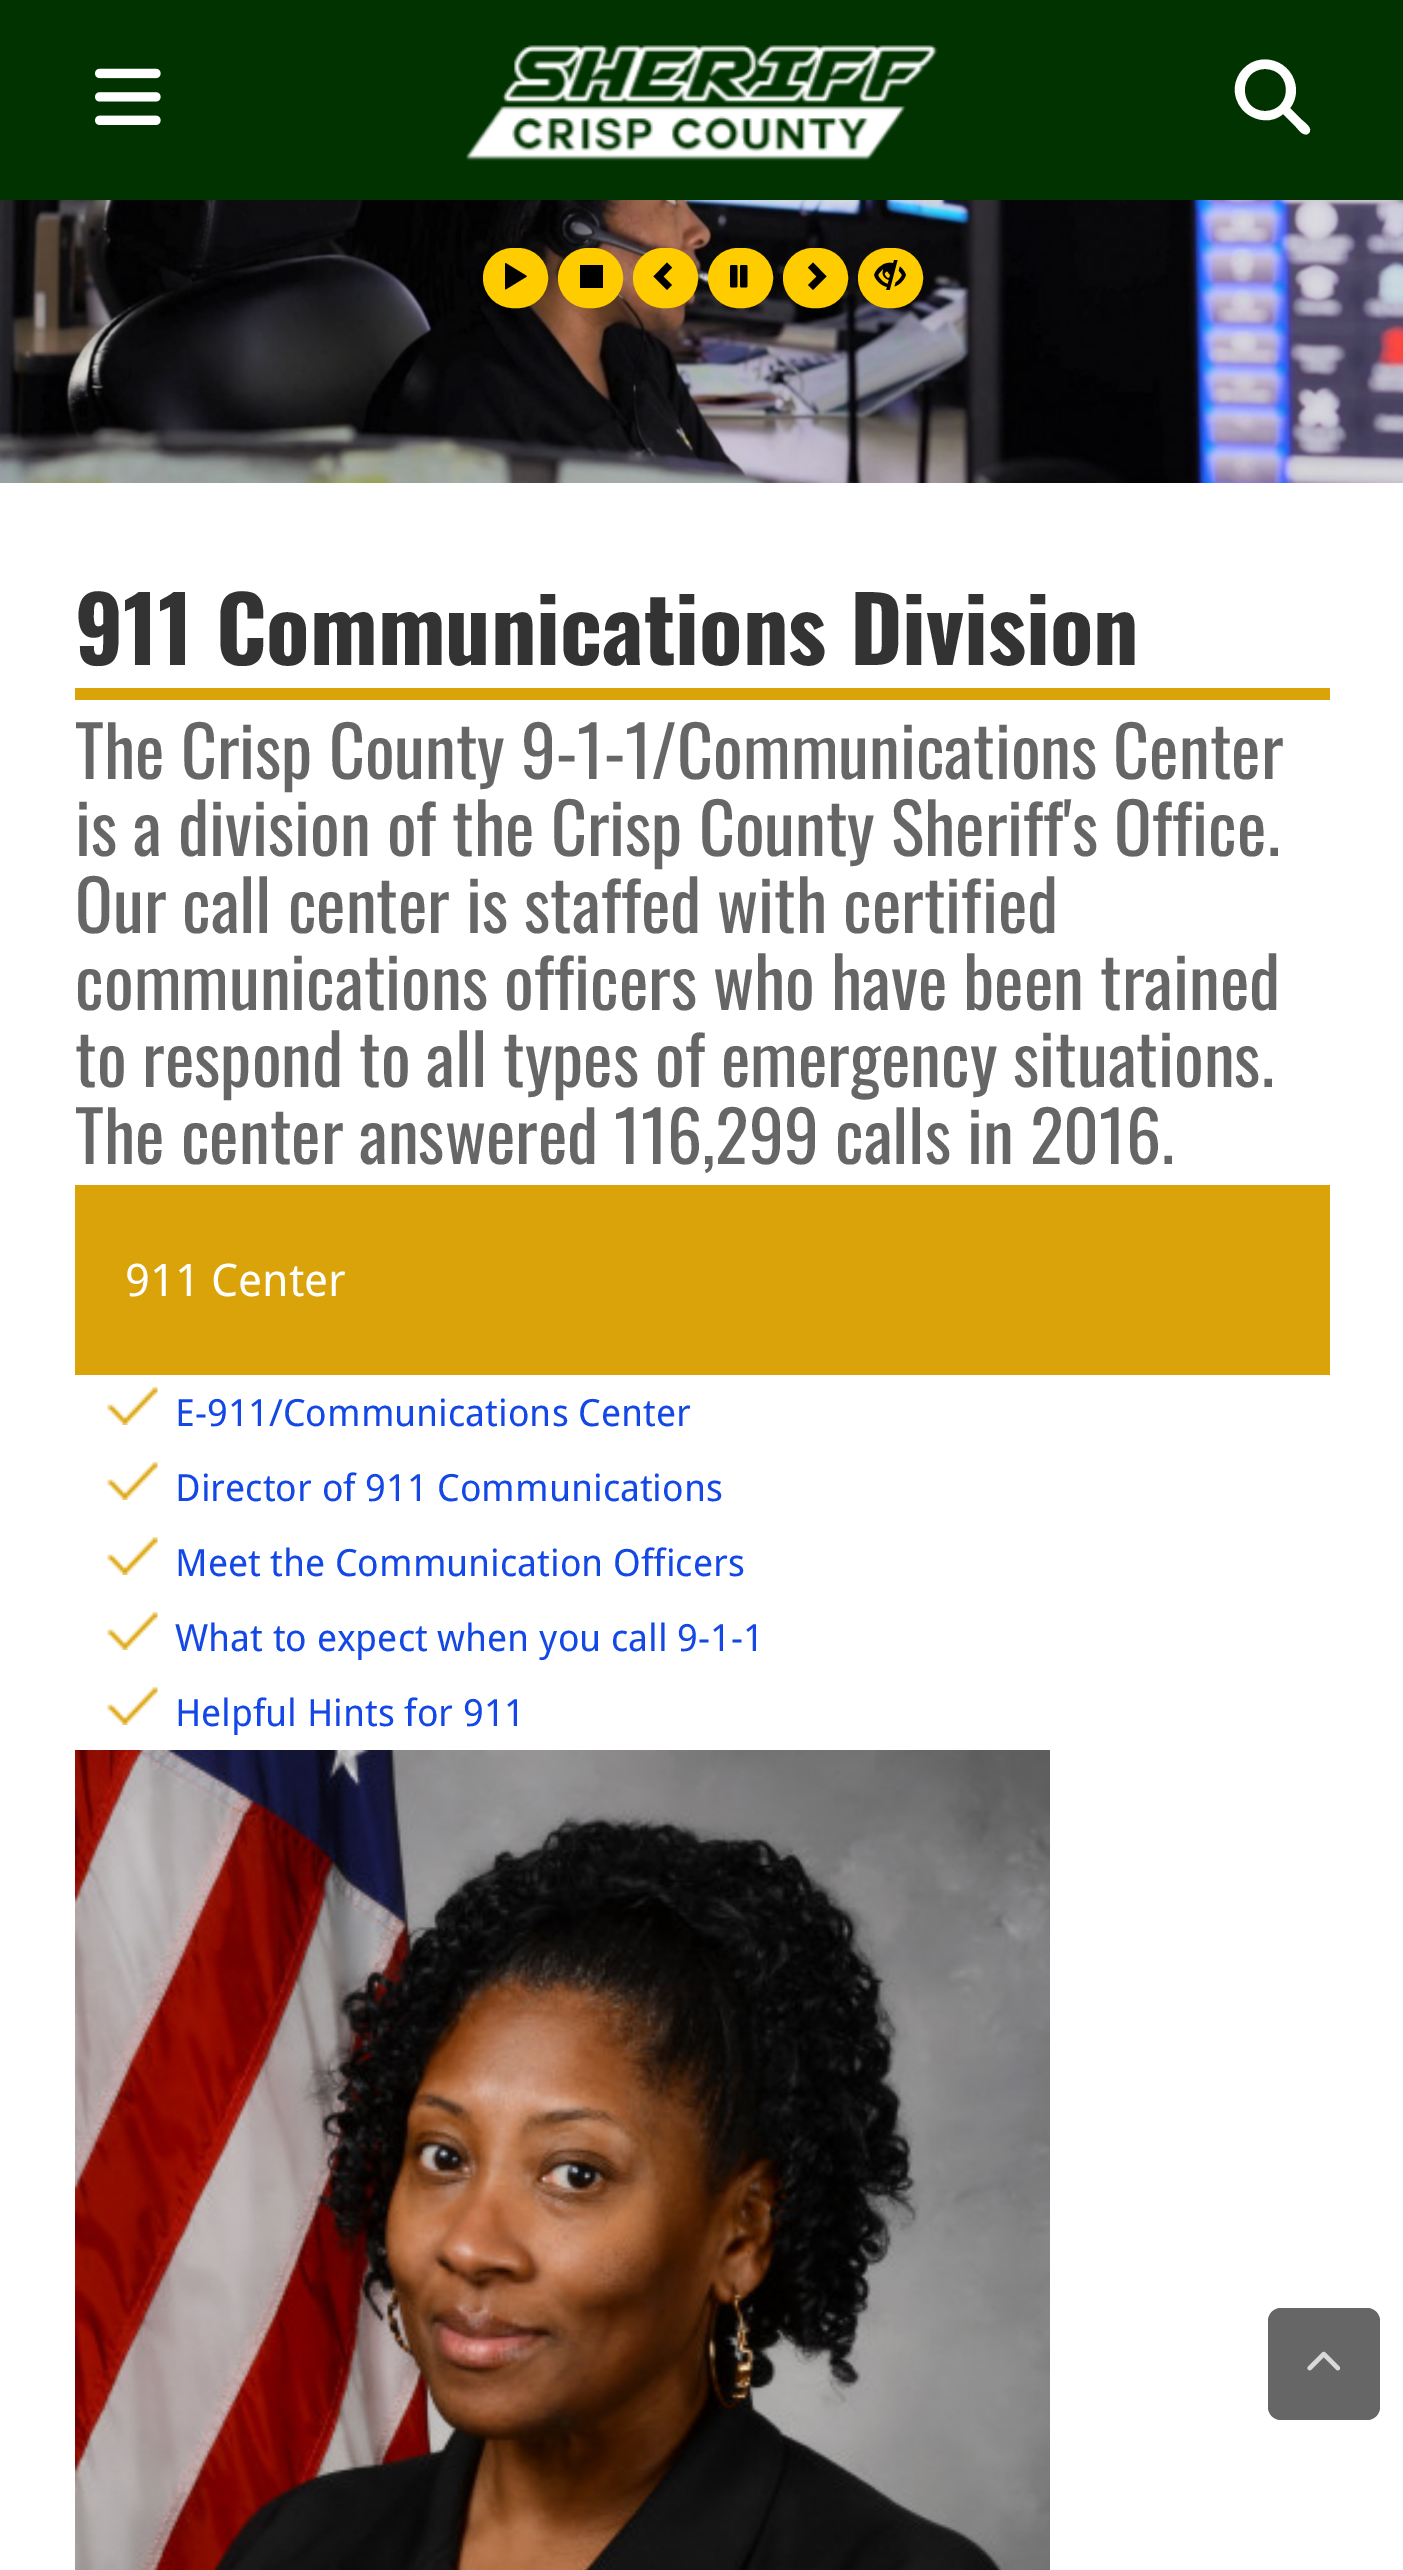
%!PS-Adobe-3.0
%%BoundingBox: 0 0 1403 2570
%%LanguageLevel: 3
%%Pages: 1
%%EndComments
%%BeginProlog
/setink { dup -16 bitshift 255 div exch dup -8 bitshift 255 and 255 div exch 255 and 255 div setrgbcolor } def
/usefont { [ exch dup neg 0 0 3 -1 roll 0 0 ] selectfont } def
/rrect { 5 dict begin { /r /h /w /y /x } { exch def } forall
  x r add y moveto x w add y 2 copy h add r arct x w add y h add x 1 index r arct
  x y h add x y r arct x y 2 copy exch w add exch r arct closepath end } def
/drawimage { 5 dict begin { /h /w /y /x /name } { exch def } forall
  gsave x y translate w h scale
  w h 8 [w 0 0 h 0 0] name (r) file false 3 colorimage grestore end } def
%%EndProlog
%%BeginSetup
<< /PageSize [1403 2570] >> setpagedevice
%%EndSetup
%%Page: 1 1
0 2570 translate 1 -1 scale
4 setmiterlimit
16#FFFFFF setink
0 0 1403 2570 rectfill
16#003300 setink
0 0 1403 200 rectfill
(img1.raw) 95 68 66 57 drawimage
(img2.raw) 466 45 472 116 drawimage
16#FFFFFF setink
1296 90 moveto 1296 97 1294 103 1290 108 curveto 1302 120 lineto 1305 123 1313 128 1309 133 curveto 1304 138 1298 129 1296 127 curveto 1283 114 lineto 1273 123 1257 122 1246 113 curveto 1240 108 1236 101 1235 93 curveto 1234 86 1236 79 1240 73 curveto 1257 48 1295 60 1296 90 curveto closepath 1265 111 moveto 1293 111 1293 69 1265 69 curveto 1238 69 1238 111 1265 111 curveto closepath fill
(img3.raw) 0 200 1403 283 drawimage
16#FFCC00 setink
485.5 250.5 60 55 27.5 rrect gsave fill grestore
5 setlinewidth
stroke
(img4.raw) 505 263 22 27 drawimage
560.5 250.5 60 55 27.5 rrect gsave fill grestore
stroke
16#000000 setink
580 265 23 23 rectfill
16#FFCC00 setink
635.5 250.5 60 55 27.5 rrect gsave fill grestore
stroke
16#000000 setink
672 267.5 moveto 663.5 276.5 lineto 672 285 lineto 667 290 lineto 653.5 276.5 lineto 667 262.5 lineto closepath fill
16#FFCC00 setink
710.5 250.5 60 55 27.5 rrect gsave fill grestore
stroke
(img5.raw) 730 265 18 23 drawimage
785.5 250.5 60 55 27.5 rrect gsave fill grestore
stroke
16#000000 setink
826.5 276.5 moveto 813 290 lineto 808 285 lineto 816.5 276.5 lineto 808 267.5 lineto 813 262.5 lineto closepath fill
16#FFCC00 setink
860.5 250.5 60 55 27.5 rrect gsave fill grestore
stroke
(img6.raw) 874 260 32 30 drawimage
16#DBA30A setink
75 688 1255 12 rectfill
/Oswald-Bold 90 usefont
16#333333 setink
75 665 moveto (911 Communications Division) show
/Oswald-Regular 70 usefont
16#666666 setink
[
    [(The Crisp County 9-1-1/Communications Center) 75 779]
    [(is a division of the Crisp County Sheriff's Office.) 75 856]
    [(Our call center is staffed with certified) 75 933]
    [(communications officers who have been trained) 75 1010]
    [(to respond to all types of emergency situations.) 75 1087]
    [(The center answered 116,299 calls in 2016.) 75 1164]
] { aload pop moveto show } forall
16#DBA30A setink
75 1185 1255 190 rectfill
/DroidSans-Regular 45 usefont
16#FFFFFF setink
125 1296 moveto (911 Center) show
(img7.raw) 107 1386 51 39 drawimage
/DroidSans-Regular 37.5 usefont
16#1347E6 setink
175 1426 moveto (E-911/Communications Center) show
(img7.raw) 107 1461 51 39 drawimage
175 1501 moveto (Director of 911 Communications) show
(img7.raw) 107 1536 51 39 drawimage
175 1576 moveto (Meet the Communication Officers) show
(img7.raw) 107 1611 51 39 drawimage
175 1651 moveto (What to expect when you call 9-1-1) show
(img7.raw) 107 1686 51 39 drawimage
175 1726 moveto (Helpful Hints for 911) show
(img8.raw) 75 1750 975 820 drawimage
16#666666 setink
1268 2308 112 112 13 rrect fill
(img9.raw) 1307 2351 34 20 drawimage
showpage
%%EOF
